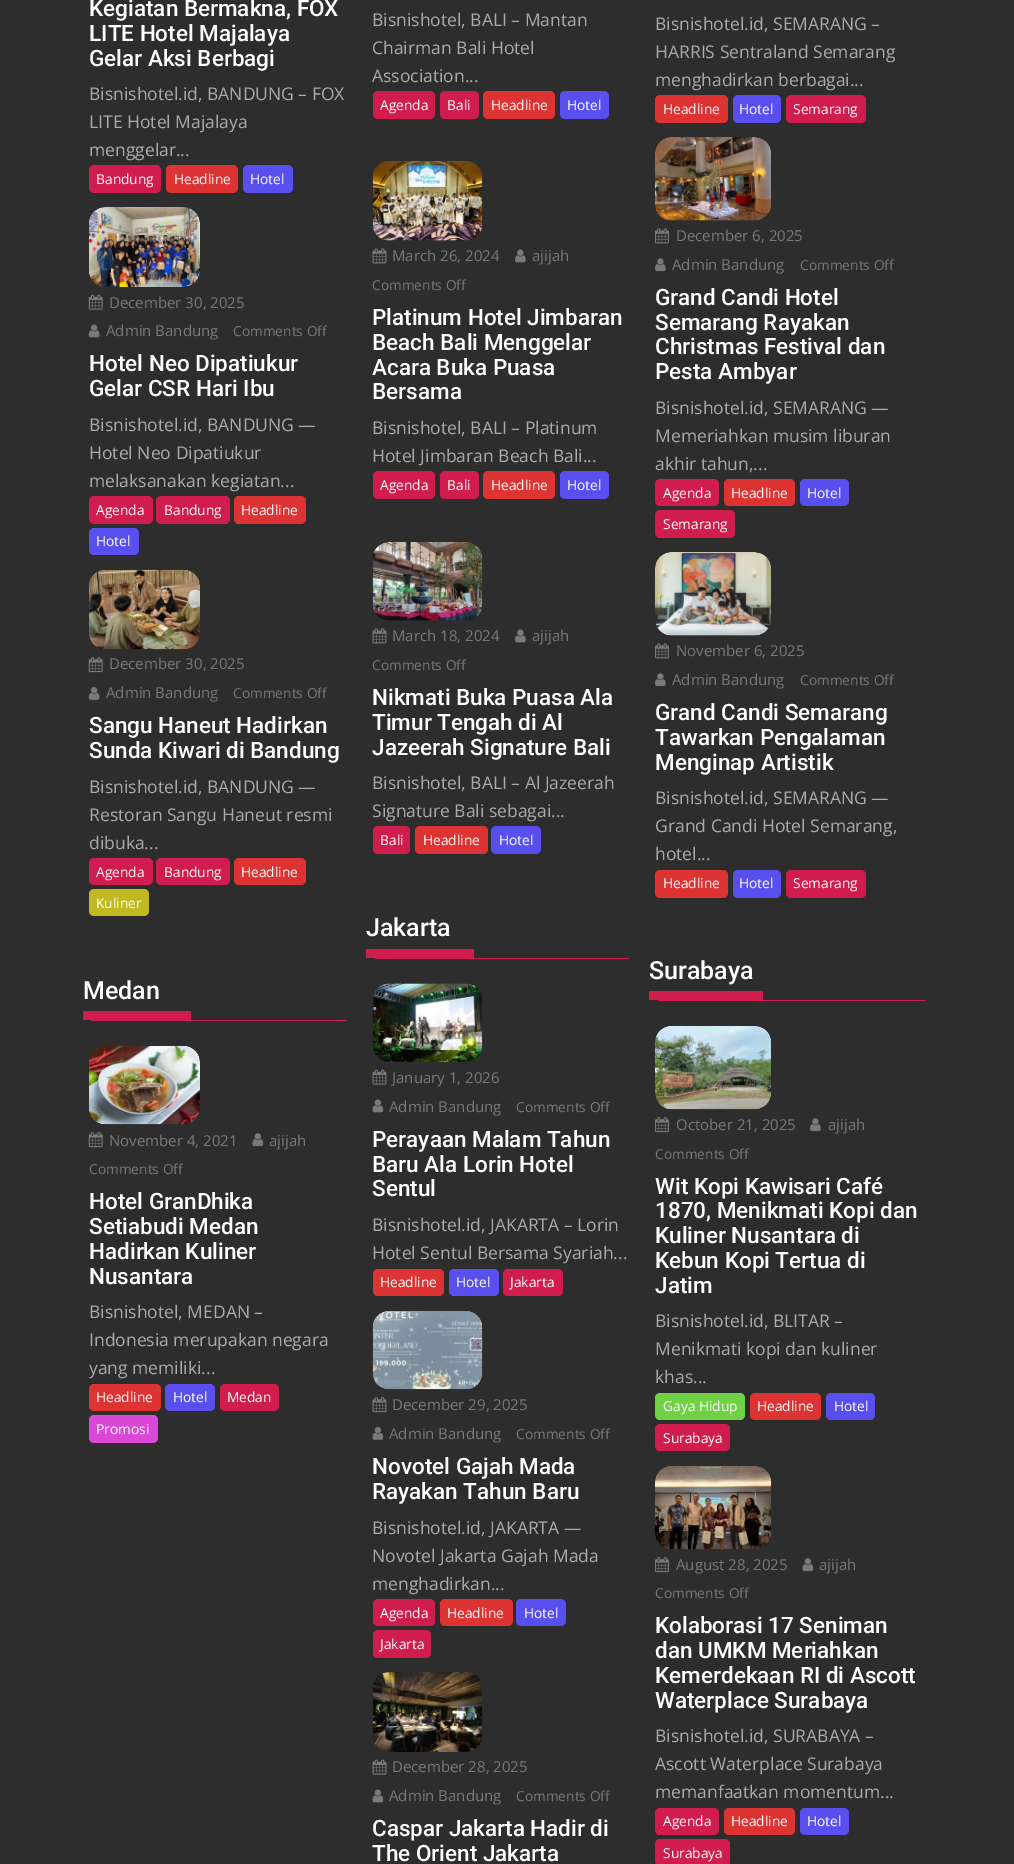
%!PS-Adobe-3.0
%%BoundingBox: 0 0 1014 1864
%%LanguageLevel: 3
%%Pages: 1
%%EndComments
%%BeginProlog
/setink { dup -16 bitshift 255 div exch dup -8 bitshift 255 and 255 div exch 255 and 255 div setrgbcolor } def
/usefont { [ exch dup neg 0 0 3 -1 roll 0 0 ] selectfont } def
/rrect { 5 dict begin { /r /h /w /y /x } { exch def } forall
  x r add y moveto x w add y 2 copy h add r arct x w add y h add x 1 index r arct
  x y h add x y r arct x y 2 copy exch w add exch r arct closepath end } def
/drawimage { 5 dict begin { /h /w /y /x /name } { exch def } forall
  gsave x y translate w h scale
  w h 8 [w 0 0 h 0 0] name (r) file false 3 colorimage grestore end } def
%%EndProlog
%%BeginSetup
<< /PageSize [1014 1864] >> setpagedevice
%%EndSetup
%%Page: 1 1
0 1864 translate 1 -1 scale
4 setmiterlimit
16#2D2D2D setink
0 0 1014 1864 rectfill
/Roboto-Medium 22.5 usefont
16#FFFFFF setink
[
    [(Kegiatan Bermakna, FOX) 89 16]
    [(LITE Hotel Majalaya) 89 41]
    [(Gelar Aksi Berbagi) 89 66]
] { aload pop moveto show } forall
/OpenSans-Regular 17.5 usefont
16#ABABAB setink
[
    [(Bisnishotel.id, BANDUNG – FOX) 89 100]
    [(LITE Hotel Majalaya) 89 128]
    [(menggelar...) 89 156]
] { aload pop moveto show } forall
16#D11D4D setink
89 165 72 28 5 rrect fill
/OpenSans-Regular 13.75 usefont
16#FFFFFF setink
96 184 moveto (Bandung) show
16#DD3333 setink
166 165 72 28 5 rrect fill
16#FFFFFF setink
174 184 moveto (Headline) show
16#594FEF setink
243 165 50 28 5 rrect fill
16#FFFFFF setink
250 184 moveto (Hotel) show
(img1.raw) 89 207 111 80 drawimage
(img2.raw) 88 294 15 16 drawimage
/OpenSans-Regular 15 usefont
16#7A7A7A setink
109 308 moveto (December 30, 2025) show
(img3.raw) 88 324 12 14 drawimage
106 336 moveto (Admin Bandung) show
/OpenSans-Regular 13.75 usefont
233 336 moveto (Comments Off) show
/Roboto-Medium 22.5 usefont
16#FFFFFF setink
89 371 moveto (Hotel Neo Dipatiukur) show
89 396 moveto (Gelar CSR Hari Ibu) show
/OpenSans-Regular 17.5 usefont
16#ABABAB setink
[
    [(Bisnishotel.id, BANDUNG —) 89 431]
    [(Hotel Neo Dipatiukur) 89 459]
    [(melaksanakan kegiatan...) 89 487]
] { aload pop moveto show } forall
16#D11D4D setink
89 496 64 28 5 rrect fill
/OpenSans-Regular 13.75 usefont
16#FFFFFF setink
96 515 moveto (Agenda) show
16#D11D4D setink
156 496 74 28 5 rrect fill
16#FFFFFF setink
164 515 moveto (Bandung) show
16#DD3333 setink
234 496 72 28 5 rrect fill
16#FFFFFF setink
241 515 moveto (Headline) show
16#594FEF setink
89 528 50 27 5 rrect fill
16#FFFFFF setink
96 546 moveto (Hotel) show
(img4.raw) 89 569 111 81 drawimage
(img5.raw) 88 657 15 16 drawimage
/OpenSans-Regular 15 usefont
16#7A7A7A setink
109 669 moveto (December 30, 2025) show
(img6.raw) 88 687 12 13 drawimage
106 698 moveto (Admin Bandung) show
/OpenSans-Regular 13.75 usefont
233 698 moveto (Comments Off) show
/Roboto-Medium 22.5 usefont
16#FFFFFF setink
89 733 moveto (Sangu Haneut Hadirkan) show
89 758 moveto (Sunda Kiwari di Bandung) show
/OpenSans-Regular 17.5 usefont
16#ABABAB setink
[
    [(Bisnishotel.id, BANDUNG —) 89 793]
    [(Restoran Sangu Haneut resmi) 89 821]
    [(dibuka...) 89 849]
] { aload pop moveto show } forall
16#D11D4D setink
89 858 64 27 5 rrect fill
/OpenSans-Regular 13.75 usefont
16#FFFFFF setink
96 877 moveto (Agenda) show
16#D11D4D setink
156 858 74 27 5 rrect fill
16#FFFFFF setink
164 877 moveto (Bandung) show
16#DD3333 setink
234 858 72 27 5 rrect fill
16#FFFFFF setink
241 877 moveto (Headline) show
16#C1B922 setink
89 889 60 27 5 rrect fill
16#FFFFFF setink
96 908 moveto (Kuliner) show
16#D11D4D setink
91 1020 255 1 rectfill
/Roboto-Medium 25 usefont
16#FFFFFF setink
83 999 moveto (Medan) show
16#D11D4D setink
83 1011 108 9 rectfill
(img7.raw) 89 1046 111 79 drawimage
(img5.raw) 88 1132 15 16 drawimage
/OpenSans-Regular 15 usefont
16#7A7A7A setink
109 1146 moveto (November 4, 2021) show
(img8.raw) 252 1133 12 14 drawimage
269 1146 moveto (ajijah) show
/OpenSans-Regular 13.75 usefont
89 1174 moveto (Comments Off) show
/Roboto-Medium 22.5 usefont
16#FFFFFF setink
[
    [(Hotel GranDhika) 89 1209]
    [(Setiabudi Medan) 89 1234]
    [(Hadirkan Kuliner) 89 1259]
    [(Nusantara) 89 1284]
] { aload pop moveto show } forall
/OpenSans-Regular 17.5 usefont
16#ABABAB setink
[
    [(Bisnishotel, MEDAN –) 89 1318]
    [(Indonesia merupakan negara) 89 1346]
    [(yang memiliki...) 89 1374]
] { aload pop moveto show } forall
16#DD3333 setink
89 1384 72 27 5 rrect fill
/OpenSans-Regular 13.75 usefont
16#FFFFFF setink
96 1402 moveto (Headline) show
16#594FEF setink
165 1384 50 27 5 rrect fill
16#FFFFFF setink
173 1402 moveto (Hotel) show
16#D11D4D setink
220 1384 59 27 5 rrect fill
16#FFFFFF setink
227 1402 moveto (Medan) show
16#DB48D8 setink
89 1415 69 28 5 rrect fill
16#FFFFFF setink
96 1434 moveto (Promosi) show
/OpenSans-Regular 17.5 usefont
16#ABABAB setink
[
    [(Bisnishotel, BALI – Mantan) 372 26]
    [(Chairman Bali Hotel) 372 54]
    [(Association...) 372 82]
] { aload pop moveto show } forall
16#D11D4D setink
373 91 62 28 5 rrect fill
/OpenSans-Regular 13.75 usefont
16#FFFFFF setink
380 110 moveto (Agenda) show
16#D11D4D setink
440 91 39 28 5 rrect fill
16#FFFFFF setink
447 110 moveto (Bali) show
16#DD3333 setink
483 91 72 28 5 rrect fill
16#FFFFFF setink
491 110 moveto (Headline) show
16#594FEF setink
560 91 49 28 5 rrect fill
16#FFFFFF setink
567 110 moveto (Hotel) show
(img9.raw) 372 161 111 80 drawimage
(img10.raw) 372 248 15 16 drawimage
/OpenSans-Regular 15 usefont
16#7A7A7A setink
392 261 moveto (March 26, 2024) show
(img11.raw) 515 249 11 14 drawimage
532 261 moveto (ajijah) show
/OpenSans-Regular 13.75 usefont
372 290 moveto (Comments Off) show
/Roboto-Medium 22.5 usefont
16#FFFFFF setink
[
    [(Platinum Hotel Jimbaran) 372 325]
    [(Beach Bali Menggelar) 372 350]
    [(Acara Buka Puasa) 372 375]
    [(Bersama) 372 399]
] { aload pop moveto show } forall
/OpenSans-Regular 17.5 usefont
16#ABABAB setink
372 434 moveto (Bisnishotel, BALI – Platinum) show
372 462 moveto (Hotel Jimbaran Beach Bali...) show
16#D11D4D setink
373 471 62 28 5 rrect fill
/OpenSans-Regular 13.75 usefont
16#FFFFFF setink
380 490 moveto (Agenda) show
16#D11D4D setink
440 471 39 28 5 rrect fill
16#FFFFFF setink
447 490 moveto (Bali) show
16#DD3333 setink
483 471 72 28 5 rrect fill
16#FFFFFF setink
491 490 moveto (Headline) show
16#594FEF setink
560 471 49 28 5 rrect fill
16#FFFFFF setink
567 490 moveto (Hotel) show
(img12.raw) 372 542 111 79 drawimage
(img10.raw) 372 628 15 16 drawimage
/OpenSans-Regular 15 usefont
16#7A7A7A setink
392 641 moveto (March 18, 2024) show
(img11.raw) 515 629 11 14 drawimage
532 641 moveto (ajijah) show
/OpenSans-Regular 13.75 usefont
372 670 moveto (Comments Off) show
/Roboto-Medium 22.5 usefont
16#FFFFFF setink
[
    [(Nikmati Buka Puasa Ala) 372 705]
    [(Timur Tengah di Al) 372 730]
    [(Jazeerah Signature Bali) 372 755]
] { aload pop moveto show } forall
/OpenSans-Regular 17.5 usefont
16#ABABAB setink
372 789 moveto (Bisnishotel, BALI – Al Jazeerah) show
372 817 moveto (Signature Bali sebagai...) show
16#D11D4D setink
373 826 37 28 5 rrect fill
/OpenSans-Regular 13.75 usefont
16#FFFFFF setink
380 845 moveto (Bali) show
16#DD3333 setink
415 826 73 28 5 rrect fill
16#FFFFFF setink
423 845 moveto (Headline) show
16#594FEF setink
491 826 50 28 5 rrect fill
16#FFFFFF setink
499 845 moveto (Hotel) show
16#D11D4D setink
375 958 254 1 rectfill
/Roboto-Medium 25 usefont
16#FFFFFF setink
366 936 moveto (Jakarta) show
16#D11D4D setink
366 949 108 9 rectfill
(img13.raw) 373 983 110 79 drawimage
(img14.raw) 372 1069 15 16 drawimage
/OpenSans-Regular 15 usefont
16#7A7A7A setink
392 1083 moveto (January 1, 2026) show
(img15.raw) 372 1099 12 14 drawimage
389 1112 moveto (Admin Bandung) show
/OpenSans-Regular 13.75 usefont
516 1112 moveto (Comments Off) show
/Roboto-Medium 22.5 usefont
16#FFFFFF setink
[
    [(Perayaan Malam Tahun) 372 1147]
    [(Baru Ala Lorin Hotel) 372 1172]
    [(Sentul) 372 1196]
] { aload pop moveto show } forall
/OpenSans-Regular 17.5 usefont
16#ABABAB setink
372 1231 moveto (Bisnishotel.id, JAKARTA – Lorin) show
372 1259 moveto (Hotel Sentul Bersama Syariah...) show
16#DD3333 setink
373 1269 71 27 5 rrect fill
/OpenSans-Regular 13.75 usefont
16#FFFFFF setink
380 1287 moveto (Headline) show
16#594FEF setink
449 1269 50 27 5 rrect fill
16#FFFFFF setink
456 1287 moveto (Hotel) show
16#D11D4D setink
503 1269 60 27 5 rrect fill
16#FFFFFF setink
510 1287 moveto (Jakarta) show
(img16.raw) 372 1311 111 79 drawimage
(img17.raw) 372 1397 15 16 drawimage
/OpenSans-Regular 15 usefont
16#7A7A7A setink
392 1410 moveto (December 29, 2025) show
(img18.raw) 372 1427 12 13 drawimage
389 1439 moveto (Admin Bandung) show
/OpenSans-Regular 13.75 usefont
516 1439 moveto (Comments Off) show
/Roboto-Medium 22.5 usefont
16#FFFFFF setink
372 1474 moveto (Novotel Gajah Mada) show
372 1499 moveto (Rayakan Tahun Baru) show
/OpenSans-Regular 17.5 usefont
16#ABABAB setink
[
    [(Bisnishotel.id, JAKARTA —) 372 1534]
    [(Novotel Jakarta Gajah Mada) 372 1562]
    [(menghadirkan...) 372 1590]
] { aload pop moveto show } forall
16#D11D4D setink
373 1599 62 27 5 rrect fill
/OpenSans-Regular 13.75 usefont
16#FFFFFF setink
380 1618 moveto (Agenda) show
16#DD3333 setink
440 1599 73 27 5 rrect fill
16#FFFFFF setink
447 1618 moveto (Headline) show
16#594FEF setink
516 1599 50 27 5 rrect fill
16#FFFFFF setink
524 1618 moveto (Hotel) show
16#D11D4D setink
373 1630 58 28 5 rrect fill
16#FFFFFF setink
380 1649 moveto (Jakarta) show
(img19.raw) 372 1672 110 80 drawimage
(img14.raw) 372 1759 15 16 drawimage
/OpenSans-Regular 15 usefont
16#7A7A7A setink
392 1772 moveto (December 28, 2025) show
(img15.raw) 372 1789 12 14 drawimage
389 1801 moveto (Admin Bandung) show
/OpenSans-Regular 13.75 usefont
516 1801 moveto (Comments Off) show
/Roboto-Medium 22.5 usefont
16#FFFFFF setink
372 1836 moveto (Caspar Jakarta Hadir di) show
372 1861 moveto (The Orient Jakarta) show
/OpenSans-Regular 17.5 usefont
16#ABABAB setink
[
    [(Bisnishotel.id, SEMARANG –) 655 30]
    [(HARRIS Sentraland Semarang) 655 58]
    [(menghadirkan berbagai...) 655 86]
] { aload pop moveto show } forall
16#DD3333 setink
655 95 73 28 5 rrect fill
/OpenSans-Regular 13.75 usefont
16#FFFFFF setink
663 114 moveto (Headline) show
16#594FEF setink
733 95 48 28 5 rrect fill
16#FFFFFF setink
739 114 moveto (Hotel) show
16#D11D4D setink
786 95 80 28 5 rrect fill
16#FFFFFF setink
793 114 moveto (Semarang) show
(img20.raw) 655 137 116 84 drawimage
(img21.raw) 655 228 14 16 drawimage
/OpenSans-Regular 15 usefont
16#7A7A7A setink
676 241 moveto (December 6, 2025) show
(img22.raw) 655 258 11 14 drawimage
672 270 moveto (Admin Bandung) show
/OpenSans-Regular 13.75 usefont
800 270 moveto (Comments Off) show
/Roboto-Medium 22.5 usefont
16#FFFFFF setink
[
    [(Grand Candi Hotel) 655 305]
    [(Semarang Rayakan) 655 330]
    [(Christmas Festival dan) 655 354]
    [(Pesta Ambyar) 655 379]
] { aload pop moveto show } forall
/OpenSans-Regular 17.5 usefont
16#ABABAB setink
[
    [(Bisnishotel.id, SEMARANG —) 655 414]
    [(Memeriahkan musim liburan) 655 442]
    [(akhir tahun,...) 655 470]
] { aload pop moveto show } forall
16#D11D4D setink
655 479 64 27 5 rrect fill
/OpenSans-Regular 13.75 usefont
16#FFFFFF setink
663 498 moveto (Agenda) show
16#DD3333 setink
724 479 71 27 5 rrect fill
16#FFFFFF setink
731 498 moveto (Headline) show
16#594FEF setink
800 479 49 27 5 rrect fill
16#FFFFFF setink
807 498 moveto (Hotel) show
16#D11D4D setink
655 510 80 28 5 rrect fill
16#FFFFFF setink
663 529 moveto (Semarang) show
(img23.raw) 655 552 116 84 drawimage
(img21.raw) 655 643 14 16 drawimage
/OpenSans-Regular 15 usefont
16#7A7A7A setink
676 656 moveto (November 6, 2025) show
(img22.raw) 655 673 11 14 drawimage
672 685 moveto (Admin Bandung) show
/OpenSans-Regular 13.75 usefont
800 685 moveto (Comments Off) show
/Roboto-Medium 22.5 usefont
16#FFFFFF setink
[
    [(Grand Candi Semarang) 655 720]
    [(Tawarkan Pengalaman) 655 745]
    [(Menginap Artistik) 655 770]
] { aload pop moveto show } forall
/OpenSans-Regular 17.5 usefont
16#ABABAB setink
[
    [(Bisnishotel.id, SEMARANG —) 655 804]
    [(Grand Candi Hotel Semarang,) 655 832]
    [(hotel...) 655 860]
] { aload pop moveto show } forall
16#DD3333 setink
655 870 73 28 5 rrect fill
/OpenSans-Regular 13.75 usefont
16#FFFFFF setink
663 888 moveto (Headline) show
16#594FEF setink
733 870 48 28 5 rrect fill
16#FFFFFF setink
739 888 moveto (Hotel) show
16#D11D4D setink
786 870 80 28 5 rrect fill
16#FFFFFF setink
793 888 moveto (Semarang) show
16#D11D4D setink
658 1000 267 1 rectfill
/Roboto-Medium 25 usefont
16#FFFFFF setink
649 979 moveto (Surabaya) show
16#D11D4D setink
649 991 114 9 rectfill
(img24.raw) 655 1026 116 84 drawimage
(img25.raw) 655 1117 14 16 drawimage
/OpenSans-Regular 15 usefont
16#7A7A7A setink
676 1130 moveto (October 21, 2025) show
(img22.raw) 810 1118 11 14 drawimage
828 1130 moveto (ajijah) show
/OpenSans-Regular 13.75 usefont
655 1159 moveto (Comments Off) show
/Roboto-Medium 22.5 usefont
16#FFFFFF setink
[
    [(Wit Kopi Kawisari Café) 655 1194]
    [(1870, Menikmati Kopi dan) 655 1218]
    [(Kuliner Nusantara di) 655 1243]
    [(Kebun Kopi Tertua di) 655 1268]
    [(Jatim) 655 1293]
] { aload pop moveto show } forall
/OpenSans-Regular 17.5 usefont
16#ABABAB setink
[
    [(Bisnishotel.id, BLITAR –) 655 1327]
    [(Menikmati kopi dan kuliner) 655 1355]
    [(khas...) 655 1383]
] { aload pop moveto show } forall
16#71D145 setink
655 1393 90 27 5 rrect fill
/OpenSans-Regular 13.75 usefont
16#FFFFFF setink
663 1411 moveto (Gaya Hidup) show
16#DD3333 setink
750 1393 71 27 5 rrect fill
16#FFFFFF setink
757 1411 moveto (Headline) show
16#594FEF setink
826 1393 49 27 5 rrect fill
16#FFFFFF setink
834 1411 moveto (Hotel) show
16#D11D4D setink
655 1424 75 27 5 rrect fill
16#FFFFFF setink
663 1443 moveto (Surabaya) show
(img26.raw) 655 1466 116 84 drawimage
(img25.raw) 655 1557 14 16 drawimage
/OpenSans-Regular 15 usefont
16#7A7A7A setink
676 1570 moveto (August 28, 2025) show
(img8.raw) 802 1558 12 14 drawimage
819 1570 moveto (ajijah) show
/OpenSans-Regular 13.75 usefont
655 1598 moveto (Comments Off) show
/Roboto-Medium 22.5 usefont
16#FFFFFF setink
[
    [(Kolaborasi 17 Seniman) 655 1633]
    [(dan UMKM Meriahkan) 655 1658]
    [(Kemerdekaan RI di Ascott) 655 1683]
    [(Waterplace Surabaya) 655 1708]
] { aload pop moveto show } forall
/OpenSans-Regular 17.5 usefont
16#ABABAB setink
[
    [(Bisnishotel.id, SURABAYA –) 655 1742]
    [(Ascott Waterplace Surabaya) 655 1770]
    [(memanfaatkan momentum...) 655 1798]
] { aload pop moveto show } forall
16#D11D4D setink
655 1808 64 27 5 rrect fill
/OpenSans-Regular 13.75 usefont
16#FFFFFF setink
663 1826 moveto (Agenda) show
16#DD3333 setink
724 1808 71 27 5 rrect fill
16#FFFFFF setink
731 1826 moveto (Headline) show
16#594FEF setink
800 1808 49 27 5 rrect fill
16#FFFFFF setink
807 1826 moveto (Hotel) show
16#D11D4D setink
655 1839 75 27 5 rrect fill
16#FFFFFF setink
663 1858 moveto (Surabaya) show
showpage
%%EOF
